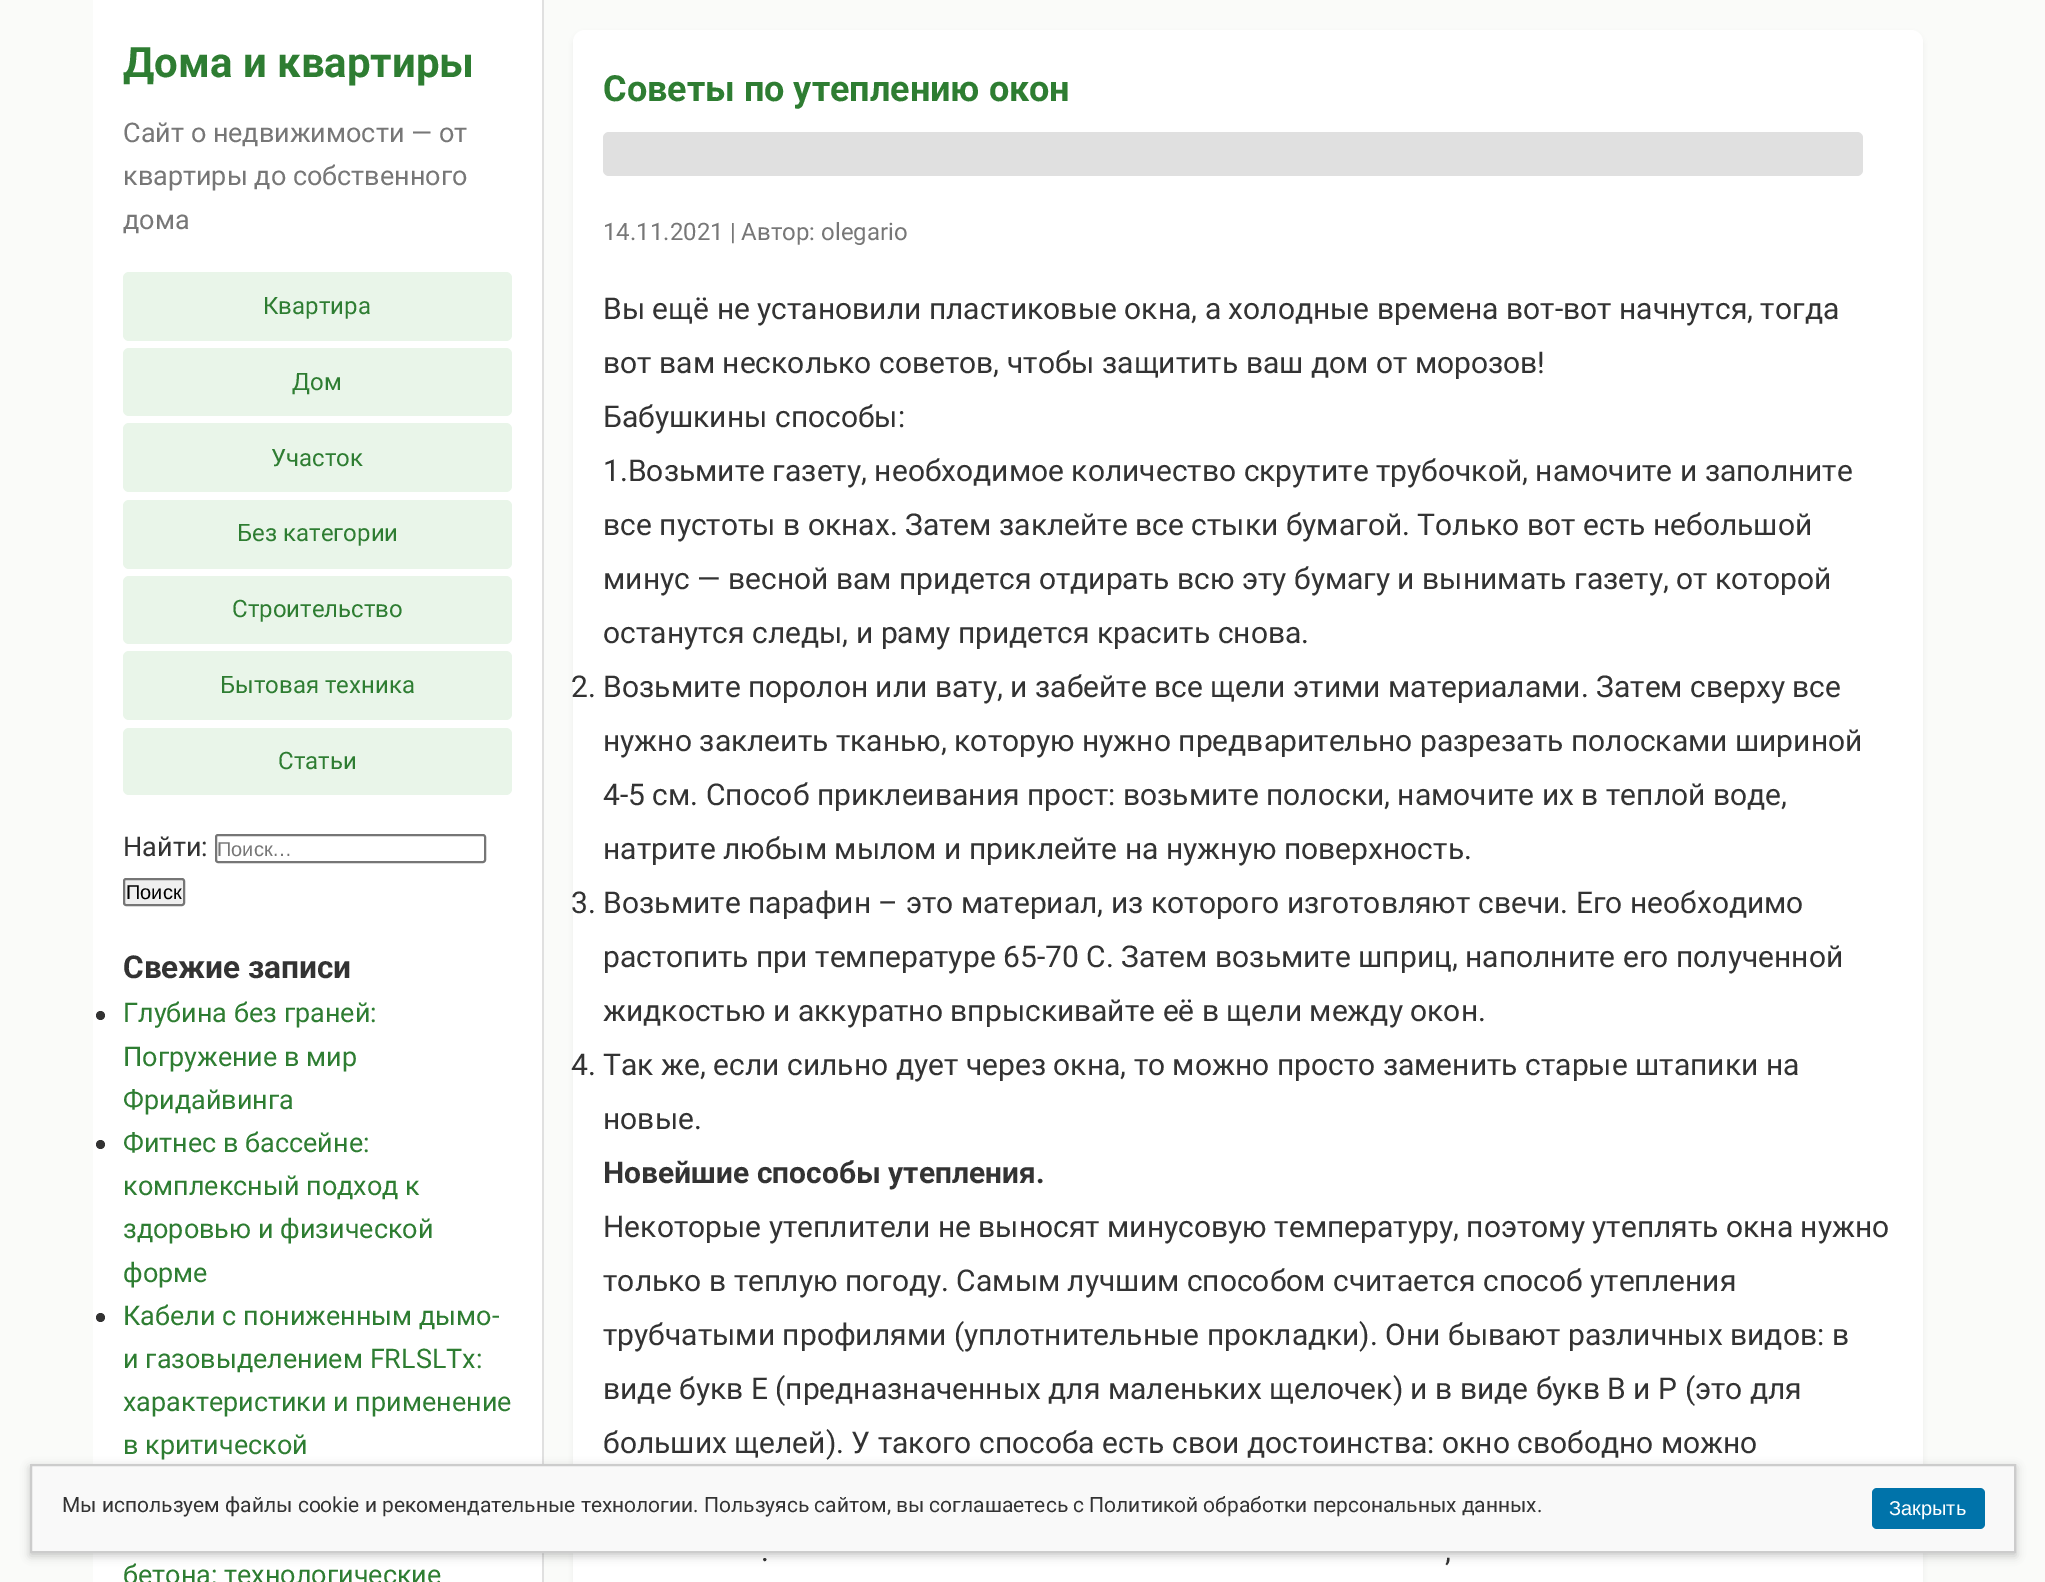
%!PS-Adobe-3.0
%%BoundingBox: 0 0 2045 1582
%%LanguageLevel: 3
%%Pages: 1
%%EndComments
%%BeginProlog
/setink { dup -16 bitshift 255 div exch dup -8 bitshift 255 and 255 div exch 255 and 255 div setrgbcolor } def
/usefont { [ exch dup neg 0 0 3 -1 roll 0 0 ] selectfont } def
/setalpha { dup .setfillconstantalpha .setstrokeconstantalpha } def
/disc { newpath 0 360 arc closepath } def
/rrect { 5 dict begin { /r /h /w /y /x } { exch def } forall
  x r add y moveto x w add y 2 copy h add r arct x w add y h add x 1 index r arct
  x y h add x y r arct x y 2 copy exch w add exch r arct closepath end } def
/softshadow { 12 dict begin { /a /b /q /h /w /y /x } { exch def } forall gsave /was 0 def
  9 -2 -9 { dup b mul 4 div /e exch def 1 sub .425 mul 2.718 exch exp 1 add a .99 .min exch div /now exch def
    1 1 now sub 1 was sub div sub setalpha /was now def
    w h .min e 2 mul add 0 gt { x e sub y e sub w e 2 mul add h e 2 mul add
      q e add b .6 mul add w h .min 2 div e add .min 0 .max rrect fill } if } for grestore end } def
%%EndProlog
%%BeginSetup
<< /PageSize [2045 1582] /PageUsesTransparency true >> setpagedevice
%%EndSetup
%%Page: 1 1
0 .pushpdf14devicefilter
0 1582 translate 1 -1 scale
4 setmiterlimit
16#FAFBF9 setink
0 0 2045 1582 rectfill
16#FFFFFF setink
93 0 449 1582 rectfill
16#E0E0E0 setink
542 0 2 1582 rectfill
/Roboto-Bold 42 usefont
16#2E7D32 setink
123 77 moveto (Дома и квартиры) show
/Roboto-Regular 27 usefont
16#777777 setink
[
    [(Сайт о недвижимости — от) 123 142]
    [(квартиры до собственного) 123 185]
    [(дома) 123 229]
] { aload pop moveto show } forall
16#E9F5E9 setink
123 272 389 69 6 rrect fill
/Roboto-Regular 24 usefont
16#2E7D32 setink
263 314 moveto (Квартира) show
16#E9F5E9 setink
123 348 389 68 6 rrect fill
16#2E7D32 setink
292 390 moveto (Дом) show
16#E9F5E9 setink
123 423 389 69 6 rrect fill
16#2E7D32 setink
271 466 moveto (Участок) show
16#E9F5E9 setink
123 500 389 69 6 rrect fill
16#2E7D32 setink
237 541 moveto (Без категории) show
16#E9F5E9 setink
123 576 389 68 6 rrect fill
16#2E7D32 setink
232 617 moveto (Строительство) show
16#E9F5E9 setink
123 651 389 69 6 rrect fill
16#2E7D32 setink
220 693 moveto (Бытовая техника) show
16#E9F5E9 setink
123 728 389 67 6 rrect fill
16#2E7D32 setink
278 769 moveto (Статьи) show
/Roboto-Regular 27 usefont
16#333333 setink
123 856 moveto (Найти:) show
16#767676 setink
2 setlinewidth
216 835 269 27 2 rrect stroke
/LiberationSans-Regular 20 usefont
16#777777 setink
217 856 moveto (Поиск…) show
16#EFEFEF setink
124 879 60 26 2 rrect gsave fill grestore
16#767676 setink
stroke
16#000000 setink
126 899 moveto (Поиск) show
/Roboto-Bold 31.5 usefont
16#333333 setink
123 978 moveto (Свежие записи) show
100.5 1015.5 4.5 disc fill
/Roboto-Regular 27 usefont
16#2E7D32 setink
[
    [(Глубина без граней:) 123 1022]
    [(Погружение в мир) 123 1066]
    [(Фридайвинга) 123 1109]
] { aload pop moveto show } forall
16#333333 setink
100.5 1144.5 4.5 disc fill
16#2E7D32 setink
[
    [(Фитнес в бассейне:) 123 1152]
    [(комплексный подход к) 123 1195]
    [(здоровью и физической) 123 1238]
    [(форме) 123 1282]
] { aload pop moveto show } forall
16#333333 setink
100.5 1317.5 4.5 disc fill
16#2E7D32 setink
[
    [(Кабели с пониженным дымо-) 123 1325]
    [(и газовыделением FRLSLTx:) 123 1368]
    [(характеристики и применение) 123 1411]
    [(в критической) 123 1454]
    [(бетона: технологические) 123 1584]
] { aload pop moveto show } forall
16#000000 setink
573 33 1350 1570 12 3 0.05 softshadow
16#FFFFFF setink
573 30 1350 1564 12 rrect fill
/Roboto-Bold 36 usefont
16#2E7D32 setink
603 101 moveto (Советы по утеплению окон) show
16#E0E0E0 setink
603 132 1260 44 6 rrect fill
/Roboto-Regular 24 usefont
16#777777 setink
603 240 moveto (14.11.2021 | Автор: olegario) show
/Roboto-Regular 30 usefont
16#333333 setink
[
    [(Вы ещё не установили пластиковые окна, а холодные времена вот-вот начнутся, тогда) 603 319]
    [(вот вам несколько советов, чтобы защитить ваш дом от морозов!) 603 373]
    [(Бабушкины способы:) 603 427]
    [(1.Возьмите газету, необходимое количество скрутите трубочкой, намочите и заполните) 603 481]
    [(все пустоты в окнах. Затем заклейте все стыки бумагой. Только вот есть небольшой) 603 535]
    [(минус — весной вам придется отдирать всю эту бумагу и вынимать газету, от которой) 603 589]
    [(останутся следы, и раму придется красить снова.) 603 643]
    [(2. Возьмите поролон или вату, и забейте все щели этими материалами. Затем сверху все) 571 697]
    [(нужно заклеить тканью, которую нужно предварительно разрезать полосками шириной) 603 751]
    [(4-5 см. Способ приклеивания прост: возьмите полоски, намочите их в теплой воде,) 603 805]
    [(натрите любым мылом и приклейте на нужную поверхность.) 603 859]
    [(3. Возьмите парафин – это материал, из которого изготовляют свечи. Его необходимо) 571 913]
    [(растопить при температуре 65-70 С. Затем возьмите шприц, наполните его полученной) 603 967]
    [(жидкостью и аккуратно впрыскивайте её в щели между окон.) 603 1021]
    [(4. Так же, если сильно дует через окна, то можно просто заменить старые штапики на) 571 1075]
    [(новые.) 603 1129]
] { aload pop moveto show } forall
/Roboto-Bold 30 usefont
603 1183 moveto (Новейшие способы утепления.) show
/Roboto-Regular 30 usefont
[
    [(Некоторые утеплители не выносят минусовую температуру, поэтому утеплять окна нужно) 603 1237]
    [(только в теплую погоду. Самым лучшим способом считается способ утепления) 603 1291]
    [(трубчатыми профилями \(уплотнительные прокладки\). Они бывают различных видов: в) 603 1345]
    [(виде букв Е \(предназначенных для маленьких щелочек\) и в виде букв B и P \(это для) 603 1399]
    [(больших щелей\). У такого способа есть свои достоинства: окно свободно можно) 603 1453]
    [(.) 761 1561]
    [(,) 1445 1561]
] { aload pop moveto show } forall
16#000000 setink
30 1467 1986 89 0 4.5 0.2 softshadow
16#F9F9F9 setink
31 1465 moveto 2015 1465 lineto 2015 1552 lineto 31 1552 lineto closepath gsave fill grestore
16#CCCCCC setink
stroke
/Roboto-Regular 21 usefont
16#333333 setink
62 1512 moveto (Мы используем файлы cookie и рекомендательные технологии. Пользуясь сайтом, вы соглашаетесь с Политикой обработки персональных данных.) show
16#0073AA setink
1872 1488 113 41 5 rrect fill
/LiberationSans-Regular 20 usefont
16#FFFFFF setink
1889 1515 moveto (Закрыть) show
.poppdf14devicefilter showpage
%%EOF
